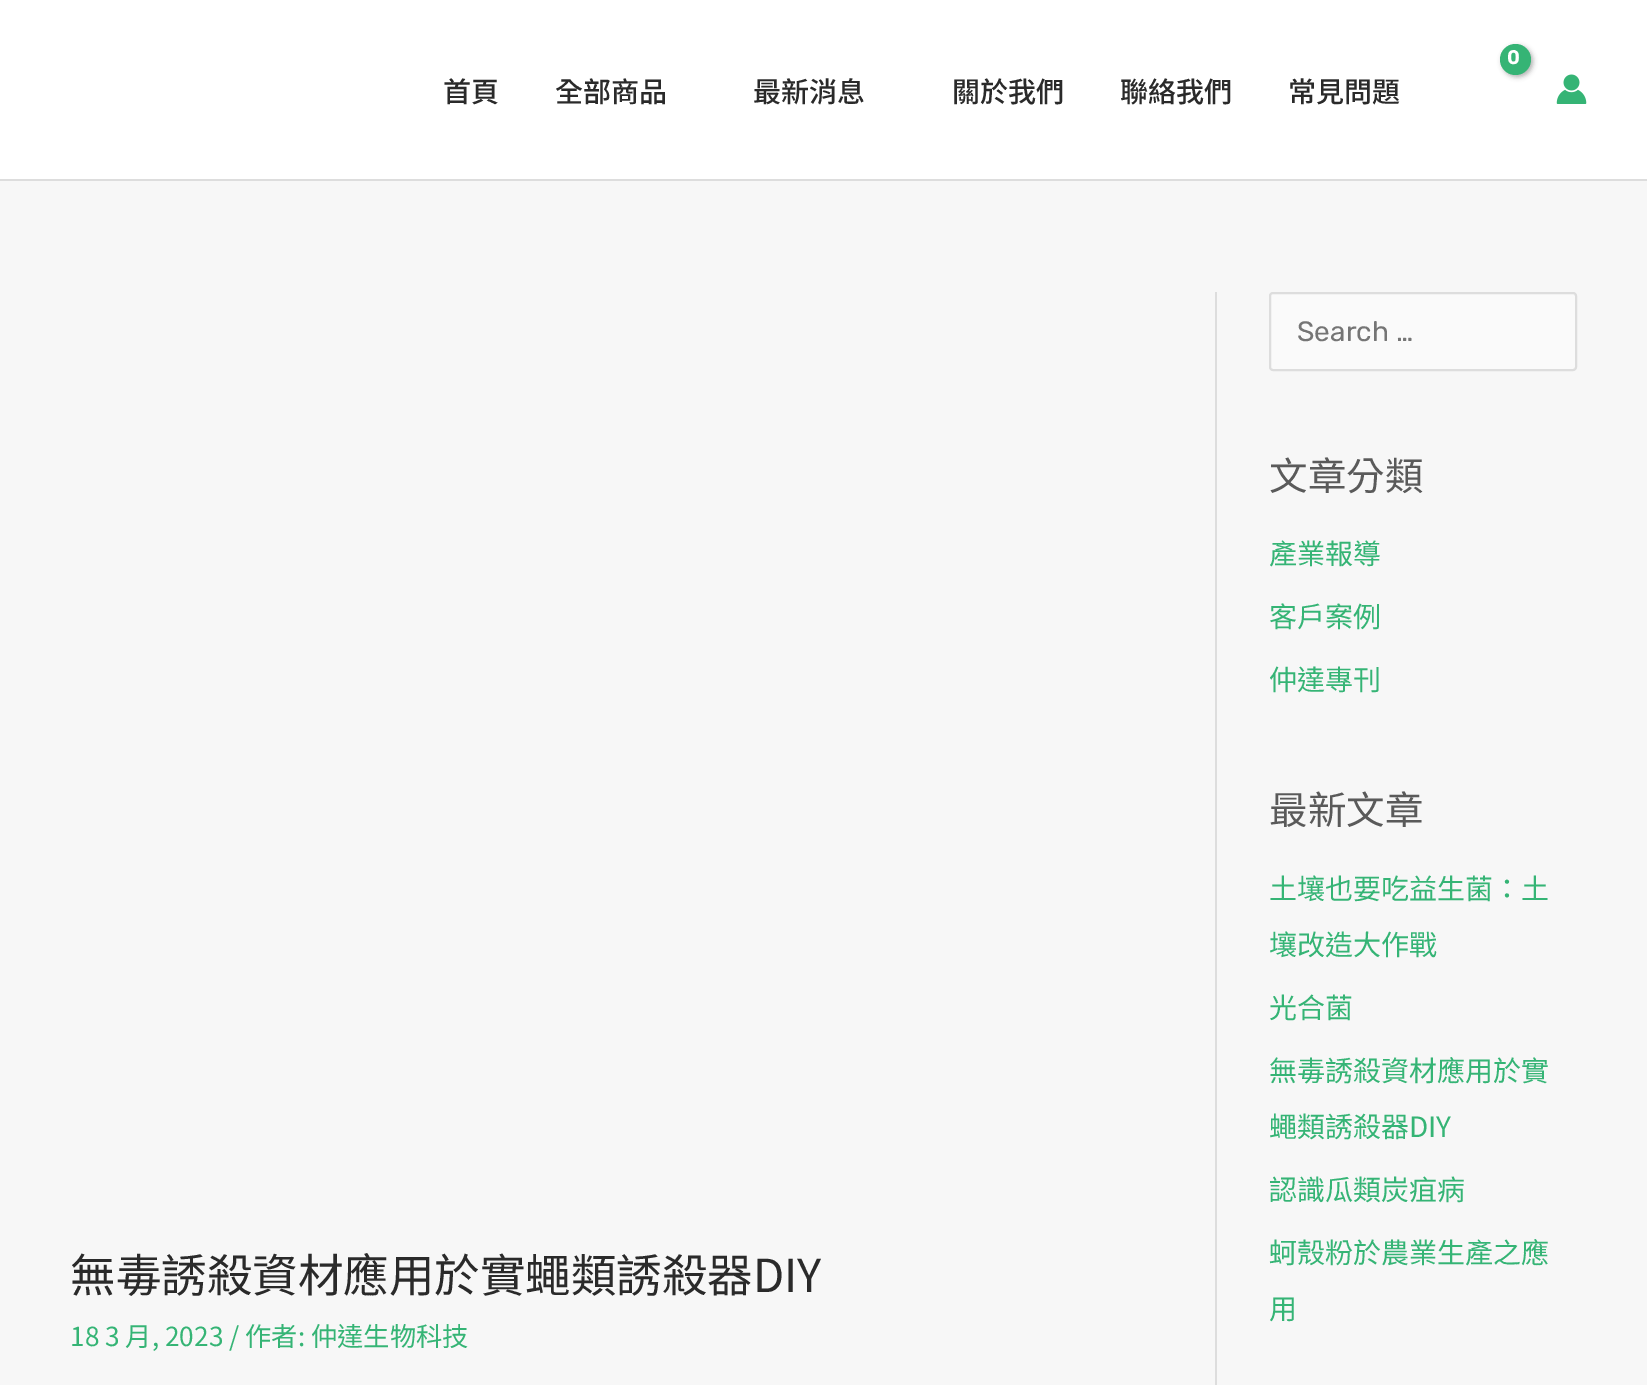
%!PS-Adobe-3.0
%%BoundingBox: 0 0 1647 1385
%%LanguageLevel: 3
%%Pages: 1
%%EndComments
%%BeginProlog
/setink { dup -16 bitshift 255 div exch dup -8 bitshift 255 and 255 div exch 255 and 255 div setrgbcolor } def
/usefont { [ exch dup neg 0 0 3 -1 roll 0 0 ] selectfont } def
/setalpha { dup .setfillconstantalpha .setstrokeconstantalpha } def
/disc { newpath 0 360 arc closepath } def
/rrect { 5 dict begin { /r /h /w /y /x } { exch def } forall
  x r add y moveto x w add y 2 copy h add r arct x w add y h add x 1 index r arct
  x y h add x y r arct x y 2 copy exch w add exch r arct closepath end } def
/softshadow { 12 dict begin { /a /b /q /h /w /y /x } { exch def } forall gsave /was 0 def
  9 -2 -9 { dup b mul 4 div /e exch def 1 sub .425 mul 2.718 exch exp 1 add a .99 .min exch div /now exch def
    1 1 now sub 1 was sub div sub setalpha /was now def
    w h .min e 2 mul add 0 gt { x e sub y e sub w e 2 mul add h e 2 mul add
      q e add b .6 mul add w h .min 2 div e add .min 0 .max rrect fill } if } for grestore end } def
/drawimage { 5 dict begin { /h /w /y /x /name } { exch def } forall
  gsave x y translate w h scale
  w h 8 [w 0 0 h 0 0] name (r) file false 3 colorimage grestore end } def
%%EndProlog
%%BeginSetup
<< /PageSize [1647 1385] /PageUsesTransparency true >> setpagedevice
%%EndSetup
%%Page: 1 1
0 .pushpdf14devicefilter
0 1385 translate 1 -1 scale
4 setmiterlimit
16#FFFFFF setink
0 0 1647 1385 rectfill
16#DDDDDD setink
0 179 1647 2 rectfill
16#000000 setink
1502 46 31 31 15.5 2.5 0.3 softshadow
16#35B475 setink
1515.5 59.5 15.5 disc fill
/Rubik-Bold 19 usefont
16#FFFFFF setink
1507 64 moveto -1 0 (0) ashow
/NotoSansTC-Medium 28 usefont
16#2A2A2A setink
[
    [(首頁) 443 102]
    [(全部商品) 555 102]
    [(最新消息) 753 102]
    [(關於我們) 952 102]
    [(聯絡我們) 1120 102]
    [(常見問題) 1288 102]
] { aload pop moveto show } forall
(img1.raw) 1556 74 31 30 drawimage
16#F7F7F7 setink
0 181 1647 1204 rectfill
16#DDDDDD setink
1215 292 2 1093 rectfill
/NotoSansTC-Regular 45.5 usefont
16#2A2A2A setink
70 1292 moveto (無毒誘殺資材應用於實蠅類誘殺器DIY) show
/NotoSansTC-Regular 26.25 usefont
16#35B475 setink
70 1346 moveto (18 3 月, 2023 / 作者: 仲達生物科技) show
16#FAFAFA setink
1270 293 306 77 3 rrect gsave fill grestore
16#DDDDDD setink
2 setlinewidth
stroke
/Rubik-Regular 28 usefont
16#757575 setink
1297 341 moveto (Search …) show
/NotoSansTC-Regular 38.5 usefont
16#5A5A5A setink
1269 490 moveto (文章分類) show
/NotoSansTC-Regular 28 usefont
16#35B475 setink
[
    [(產業報導) 1269 564]
    [(客戶案例) 1269 627]
    [(仲達專刊) 1269 690]
] { aload pop moveto show } forall
/NotoSansTC-Regular 38.5 usefont
16#5A5A5A setink
1269 824 moveto (最新文章) show
/NotoSansTC-Regular 28 usefont
16#35B475 setink
[
    [(土壤也要吃益生菌：土) 1269 899]
    [(壤改造大作戰) 1269 955]
    [(光合菌) 1269 1018]
    [(無毒誘殺資材應用於實) 1269 1081]
    [(蠅類誘殺器DIY) 1269 1137]
    [(認識瓜類炭疽病) 1269 1200]
    [(蚵殼粉於農業生產之應) 1269 1263]
    [(用) 1269 1319]
] { aload pop moveto show } forall
.poppdf14devicefilter showpage
%%EOF
